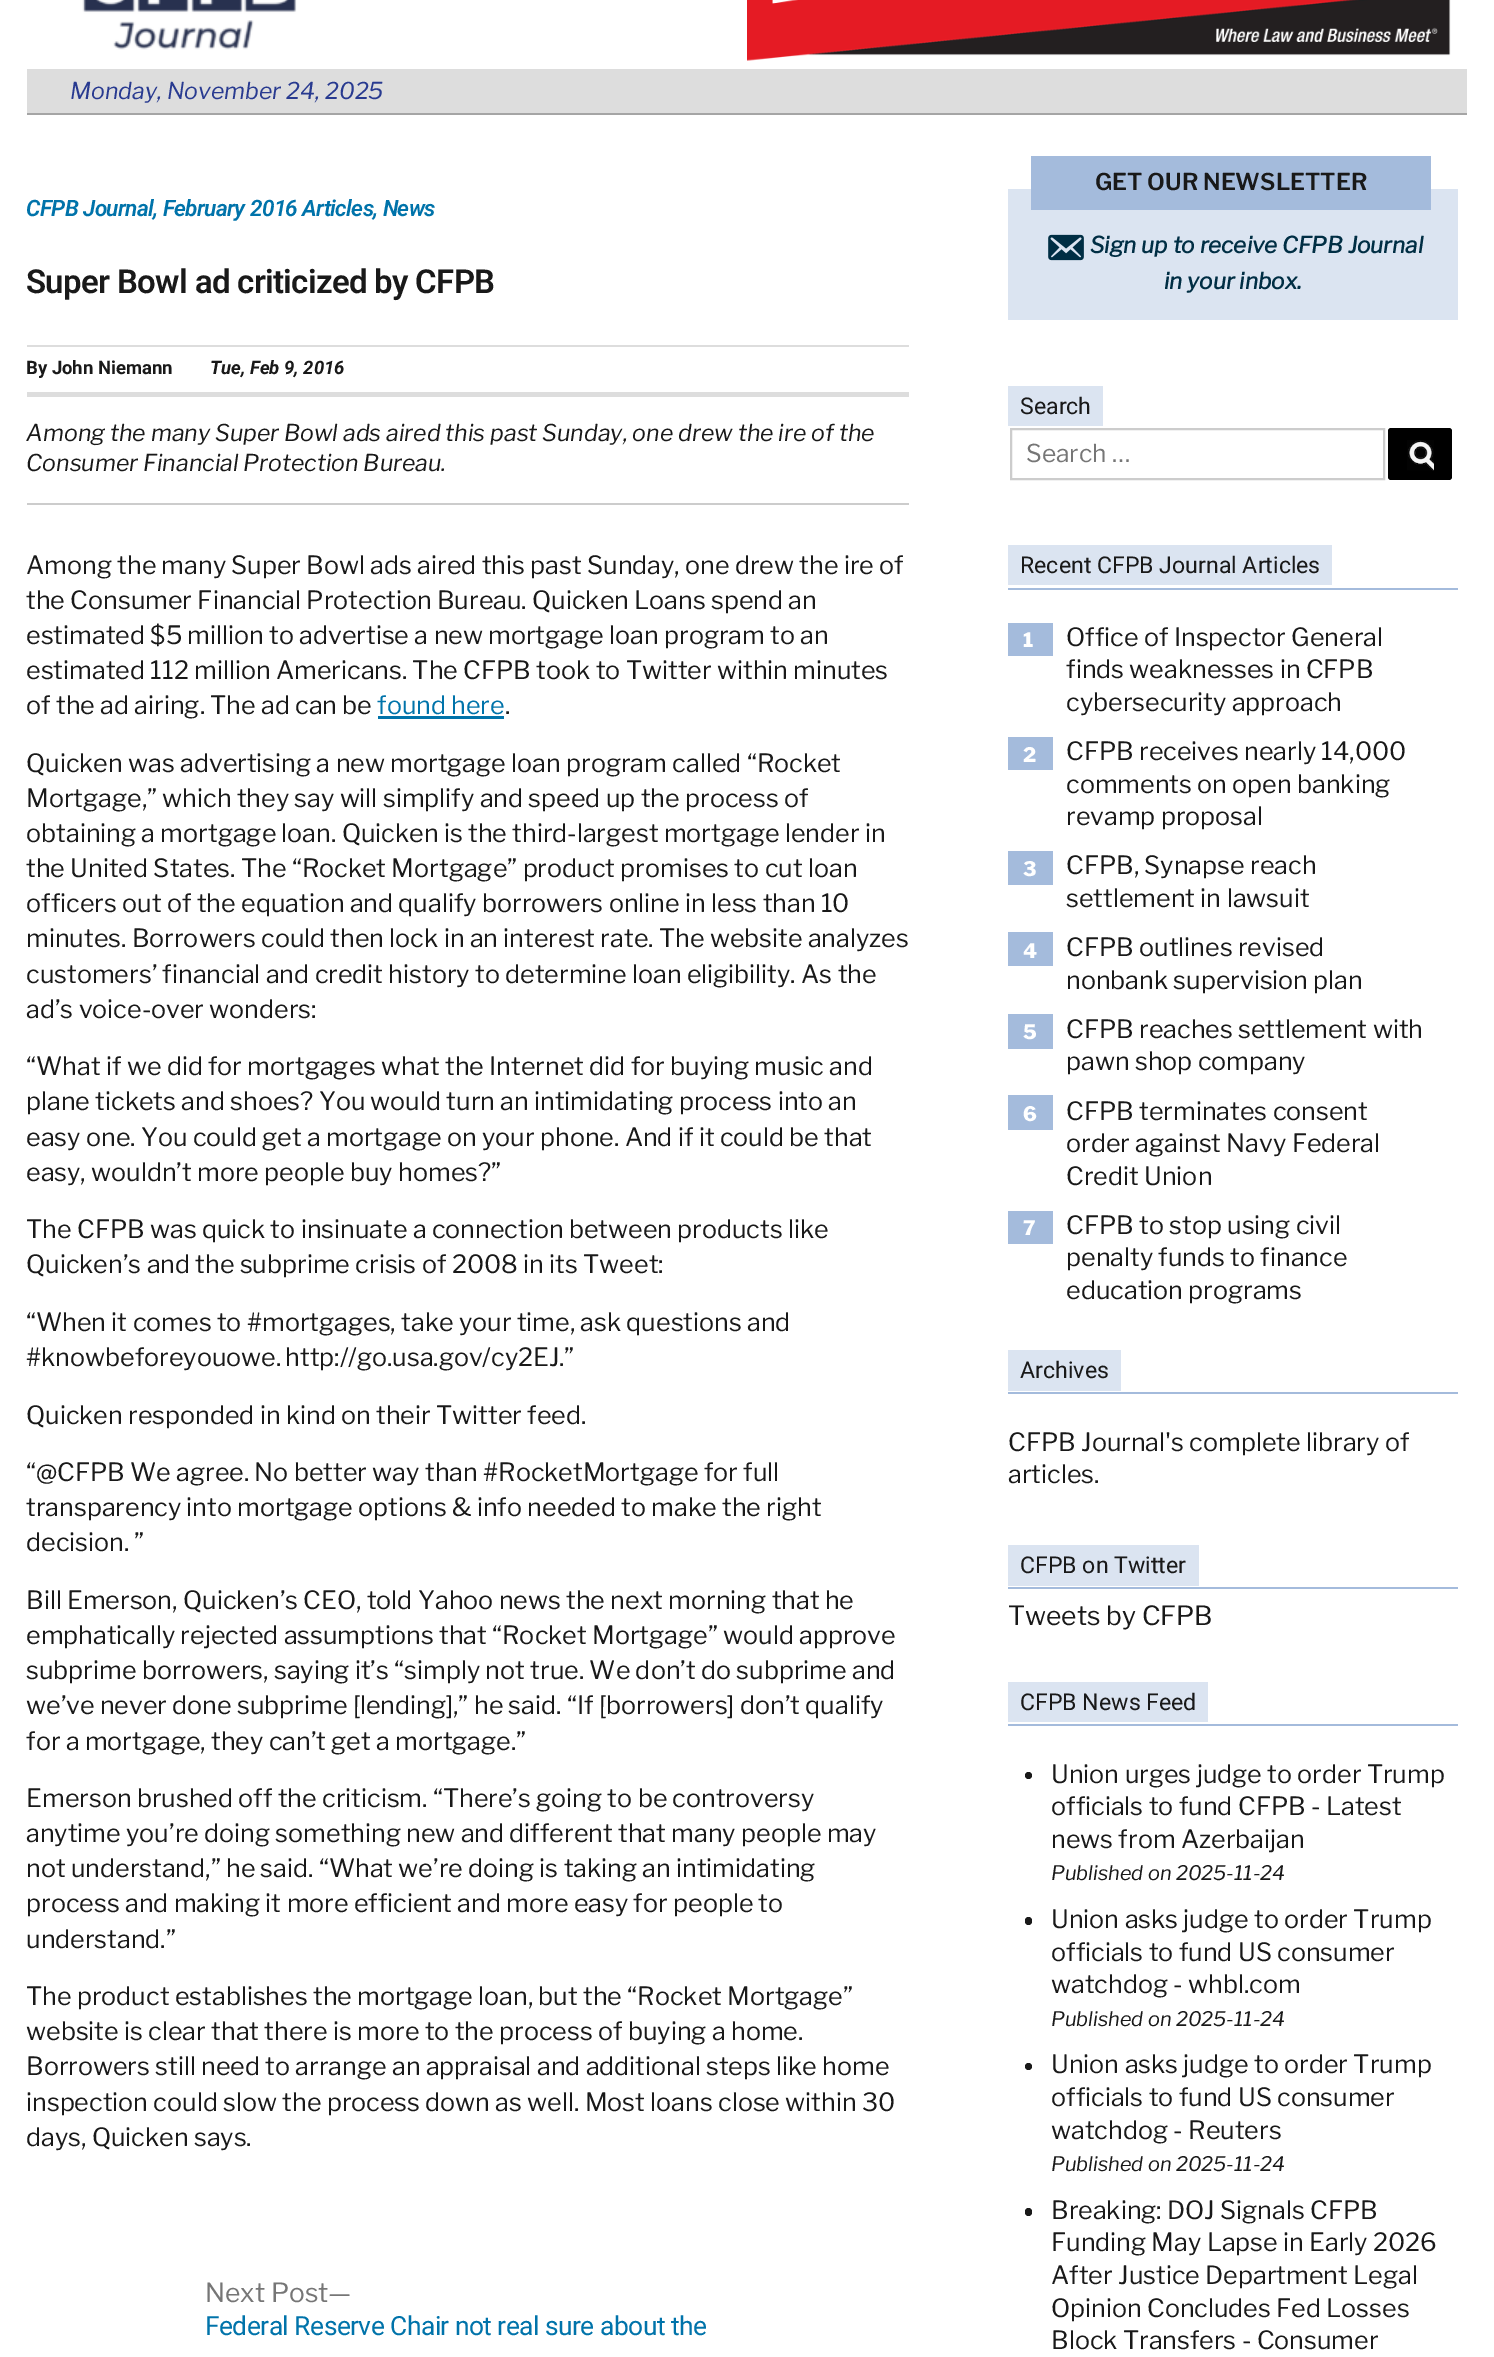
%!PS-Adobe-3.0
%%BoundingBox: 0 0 1494 2357
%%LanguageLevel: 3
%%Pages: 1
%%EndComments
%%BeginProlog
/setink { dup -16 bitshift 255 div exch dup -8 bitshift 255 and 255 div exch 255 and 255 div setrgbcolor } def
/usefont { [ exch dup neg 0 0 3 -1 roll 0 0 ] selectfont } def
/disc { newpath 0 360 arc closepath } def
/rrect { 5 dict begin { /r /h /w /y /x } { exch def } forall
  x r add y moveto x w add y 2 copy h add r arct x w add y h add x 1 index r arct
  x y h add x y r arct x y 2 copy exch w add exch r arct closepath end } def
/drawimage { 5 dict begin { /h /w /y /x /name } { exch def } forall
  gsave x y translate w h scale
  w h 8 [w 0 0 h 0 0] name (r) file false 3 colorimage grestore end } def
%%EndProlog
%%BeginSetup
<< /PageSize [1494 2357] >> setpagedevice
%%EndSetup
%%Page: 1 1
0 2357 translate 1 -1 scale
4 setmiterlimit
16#FFFFFF setink
0 0 1494 2357 rectfill
(img1.raw) 82 0 215 50 drawimage
(img2.raw) 747 0 704 61 drawimage
16#DDDDDD setink
27 69 1440 44 rectfill
16#A5A5A5 setink
27 113 1440 2 rectfill
/LibreFranklin-ThinItalic 23.1 usefont
16#283A90 setink
70 99 moveto (Monday, November 24, 2025) show
/Roboto-SemiBoldItalic 22.6 usefont
16#0073AA setink
26 216 moveto -0.6 0 (CFPB Journal, February 2016 Articles) ashow
373 216 moveto -0.6 0 (, News) ashow
/Roboto-SemiBold 33 usefont
16#191919 setink
26 293 moveto -0.65 0 (Super Bowl ad criticized by CFPB) ashow
16#DDDDDD setink
27 345 882 2 rectfill
27 392 882 5 rectfill
/Roboto-Bold 18.5 usefont
16#191919 setink
26 374 moveto (By John Niemann) show
/Roboto-BoldItalic 18.5 usefont
210 374 moveto (Tue, Feb 9, 2016) show
16#CCCCCC setink
27 503 882 2 rectfill
/LibreFranklin-ThinItalic 23.1 usefont
16#191919 setink
26 441 moveto (Among the many Super Bowl ads aired this past Sunday, one drew the ire of the) show
26 471 moveto (Consumer Financial Protection Bureau.) show
/LibreFranklin-Regular 25.1 usefont
[
    [(Among the many Super Bowl ads aired this past Sunday, one drew the ire of) 26 574]
    [(the Consumer Financial Protection Bureau. Quicken Loans spend an) 26 609]
    [(estimated $5 million to advertise a new mortgage loan program to an) 26 644]
    [(estimated 112 million Americans. The CFPB took to Twitter within minutes) 26 679]
    [(of the ad airing. The ad can be) 26 714]
] { aload pop moveto show } forall
16#0073AA setink
377 714 moveto (found here) show
378 716 126 3 rectfill
16#191919 setink
[
    [(.) 505 714]
    [(Quicken was advertising a new mortgage loan program called “Rocket) 26 772]
    [(Mortgage,” which they say will simplify and speed up the process of) 26 807]
    [(obtaining a mortgage loan. Quicken is the third-largest mortgage lender in) 26 842]
    [(the United States. The “Rocket Mortgage” product promises to cut loan) 26 877]
    [(officers out of the equation and qualify borrowers online in less than 10) 26 912]
    [(minutes. Borrowers could then lock in an interest rate. The website analyzes) 26 947]
    [(customers’ financial and credit history to determine loan eligibility. As the) 26 983]
    [(ad’s voice-over wonders:) 26 1018]
    [(“What if we did for mortgages what the Internet did for buying music and) 26 1075]
    [(plane tickets and shoes? You would turn an intimidating process into an) 26 1110]
    [(easy one. You could get a mortgage on your phone. And if it could be that) 26 1146]
    [(easy, wouldn’t more people buy homes?”) 26 1181]
    [(The CFPB was quick to insinuate a connection between products like) 26 1238]
    [(Quicken’s and the subprime crisis of 2008 in its Tweet:) 26 1273]
    [(“When it comes to #mortgages, take your time, ask questions and) 26 1331]
] { aload pop moveto show } forall
26 1366 moveto -1 0 32 (#knowbeforeyouowe. http://go.usa.gov/cy2EJ.”) widthshow
[
    [(Quicken responded in kind on their Twitter feed.) 26 1424]
    [(“@CFPB We agree. No better way than #RocketMortgage for full) 26 1481]
    [(transparency into mortgage options & info needed to make the right) 26 1516]
    [(decision. ”) 26 1551]
    [(Bill Emerson, Quicken’s CEO, told Yahoo news the next morning that he) 26 1609]
    [(emphatically rejected assumptions that “Rocket Mortgage” would approve) 26 1644]
    [(subprime borrowers, saying it’s “simply not true. We don’t do subprime and) 26 1679]
    [(we’ve never done subprime [lending],” he said. “If [borrowers] don’t qualify) 26 1714]
    [(for a mortgage, they can’t get a mortgage.”) 26 1750]
    [(Emerson brushed off the criticism. “There’s going to be controversy) 26 1807]
    [(anytime you’re doing something new and different that many people may) 26 1842]
    [(not understand,” he said. “What we’re doing is taking an intimidating) 26 1877]
    [(process and making it more efficient and more easy for people to) 26 1912]
    [(understand.”) 26 1948]
    [(The product establishes the mortgage loan, but the “Rocket Mortgage”) 26 2005]
    [(website is clear that there is more to the process of buying a home.) 26 2040]
    [(Borrowers still need to arrange an appraisal and additional steps like home) 26 2075]
    [(inspection could slow the process down as well. Most loans close within 30) 26 2111]
    [(days, Quicken says.) 26 2146]
] { aload pop moveto show } forall
/LibreFranklin-Regular 26.4 usefont
16#767676 setink
205 2302 moveto (Next Post—) show
/Roboto-Regular 26.4 usefont
16#0073AA setink
205 2335 moveto -0.55 0 (Federal Reserve Chair not real sure about the) ashow
16#DBE4F1 setink
1008 189 450 131 rectfill
16#A4BBDC setink
1031 156 400 54 rectfill
/LibreFranklin-SemiBold 23.1 usefont
16#191919 setink
1095 190 moveto (GET OUR NEWSLETTER) show
(img3.raw) 1048 234 36 27 drawimage
/LibreFranklin-BoldItalic 22.5 usefont
16#002E44 setink
1090 253 moveto (Sign up to receive CFPB Journal) show
1164 289 moveto (in your inbox.) show
16#DBE4F1 setink
1008 386 95 40 rectfill
/Roboto-Regular 23.1 usefont
16#191919 setink
1020 414 moveto (Search) show
16#CCCCCC setink
2 setlinewidth
1011 429 373 50 rectstroke
/LibreFranklin-Regular 24.5 usefont
16#767676 setink
1026 462 moveto (Search …) show
16#000000 setink
1388 428 64 52 3 rrect fill
(img4.raw) 1407 440 27 31 drawimage
16#A4BBDC setink
1008 588 450 2 rectfill
16#DBE4F1 setink
1008 545 324 40 rectfill
/Roboto-Regular 23.1 usefont
16#191919 setink
1020 573 moveto (Recent CFPB Journal Articles) show
16#A4BBDC setink
1008 623 45 33 rectfill
/LibreFranklin-ExtraBold 20 usefont
16#FFFFFF setink
1023 647 moveto (1) show
/LibreFranklin-Regular 25.1 usefont
16#191919 setink
[
    [(Office of Inspector General) 1066 646]
    [(finds weaknesses in CFPB) 1066 678]
    [(cybersecurity approach) 1066 711]
] { aload pop moveto show } forall
16#A4BBDC setink
1008 737 45 33 rectfill
/LibreFranklin-ExtraBold 20 usefont
16#FFFFFF setink
1023 762 moveto (2) show
/LibreFranklin-Regular 25.1 usefont
16#191919 setink
[
    [(CFPB receives nearly 14,000) 1066 760]
    [(comments on open banking) 1066 793]
    [(revamp proposal) 1066 825]
] { aload pop moveto show } forall
16#A4BBDC setink
1008 851 45 34 rectfill
/LibreFranklin-ExtraBold 20 usefont
16#FFFFFF setink
1023 876 moveto (3) show
/LibreFranklin-Regular 25.1 usefont
16#191919 setink
1066 874 moveto (CFPB, Synapse reach) show
1066 907 moveto (settlement in lawsuit) show
16#A4BBDC setink
1008 932 45 34 rectfill
/LibreFranklin-ExtraBold 20 usefont
16#FFFFFF setink
1023 958 moveto (4) show
/LibreFranklin-Regular 25.1 usefont
16#191919 setink
1066 956 moveto (CFPB outlines revised) show
1066 989 moveto (nonbank supervision plan) show
16#A4BBDC setink
1008 1014 45 35 rectfill
/LibreFranklin-ExtraBold 20 usefont
16#FFFFFF setink
1023 1039 moveto (5) show
/LibreFranklin-Regular 25.1 usefont
16#191919 setink
1066 1038 moveto (CFPB reaches settlement with) show
1066 1070 moveto (pawn shop company) show
16#A4BBDC setink
1008 1095 45 35 rectfill
/LibreFranklin-ExtraBold 20 usefont
16#FFFFFF setink
1023 1121 moveto (6) show
/LibreFranklin-Regular 25.1 usefont
16#191919 setink
[
    [(CFPB terminates consent) 1066 1120]
    [(order against Navy Federal) 1066 1152]
    [(Credit Union) 1066 1185]
] { aload pop moveto show } forall
16#A4BBDC setink
1008 1211 45 33 rectfill
/LibreFranklin-ExtraBold 20 usefont
16#FFFFFF setink
1023 1235 moveto (7) show
/LibreFranklin-Regular 25.1 usefont
16#191919 setink
[
    [(CFPB to stop using civil) 1066 1234]
    [(penalty funds to finance) 1066 1266]
    [(education programs) 1066 1299]
] { aload pop moveto show } forall
16#A4BBDC setink
1008 1392 450 2 rectfill
16#DBE4F1 setink
1008 1350 113 41 rectfill
/Roboto-Regular 23.1 usefont
16#191919 setink
1020 1378 moveto (Archives) show
/LibreFranklin-Regular 25.1 usefont
1008 1451 moveto (CFPB Journal's complete library of) show
1008 1483 moveto (articles.) show
16#A4BBDC setink
1008 1587 450 2 rectfill
16#DBE4F1 setink
1008 1545 191 41 rectfill
/Roboto-Regular 23.1 usefont
16#191919 setink
1020 1573 moveto (CFPB on Twitter) show
/LibreFranklin-Regular 26.4 usefont
1008 1625 moveto (Tweets by CFPB) show
16#A4BBDC setink
1008 1724 450 2 rectfill
16#DBE4F1 setink
1008 1682 200 40 rectfill
/Roboto-Regular 23.1 usefont
16#191919 setink
1020 1710 moveto (CFPB News Feed) show
1028.5 1775.5 3.5 disc fill
/LibreFranklin-Regular 25.1 usefont
[
    [(Union urges judge to order Trump) 1051 1783]
    [(officials to fund CFPB - Latest) 1051 1815]
    [(news from Azerbaijan) 1051 1848]
] { aload pop moveto show } forall
/LibreFranklin-ThinItalic 20 usefont
1051 1880 moveto (Published on 2025-11-24) show
1025 1917 7 8 3.5 rrect fill
/LibreFranklin-Regular 25.1 usefont
[
    [(Union asks judge to order Trump) 1051 1928]
    [(officials to fund US consumer) 1051 1961]
    [(watchdog - whbl.com) 1051 1993]
] { aload pop moveto show } forall
/LibreFranklin-ThinItalic 20 usefont
1051 2026 moveto (Published on 2025-11-24) show
1028.5 2066.5 3.5 disc fill
/LibreFranklin-Regular 25.1 usefont
[
    [(Union asks judge to order Trump) 1051 2073]
    [(officials to fund US consumer) 1051 2106]
    [(watchdog - Reuters) 1051 2139]
] { aload pop moveto show } forall
/LibreFranklin-ThinItalic 20 usefont
1051 2171 moveto (Published on 2025-11-24) show
1025 2208 7 8 3.5 rrect fill
/LibreFranklin-Regular 25.1 usefont
[
    [(Breaking: DOJ Signals CFPB) 1051 2219]
    [(Funding May Lapse in Early 2026) 1051 2251]
    [(After Justice Department Legal) 1051 2284]
    [(Opinion Concludes Fed Losses) 1051 2317]
    [(Block Transfers - Consumer) 1051 2349]
] { aload pop moveto show } forall
showpage
%%EOF
